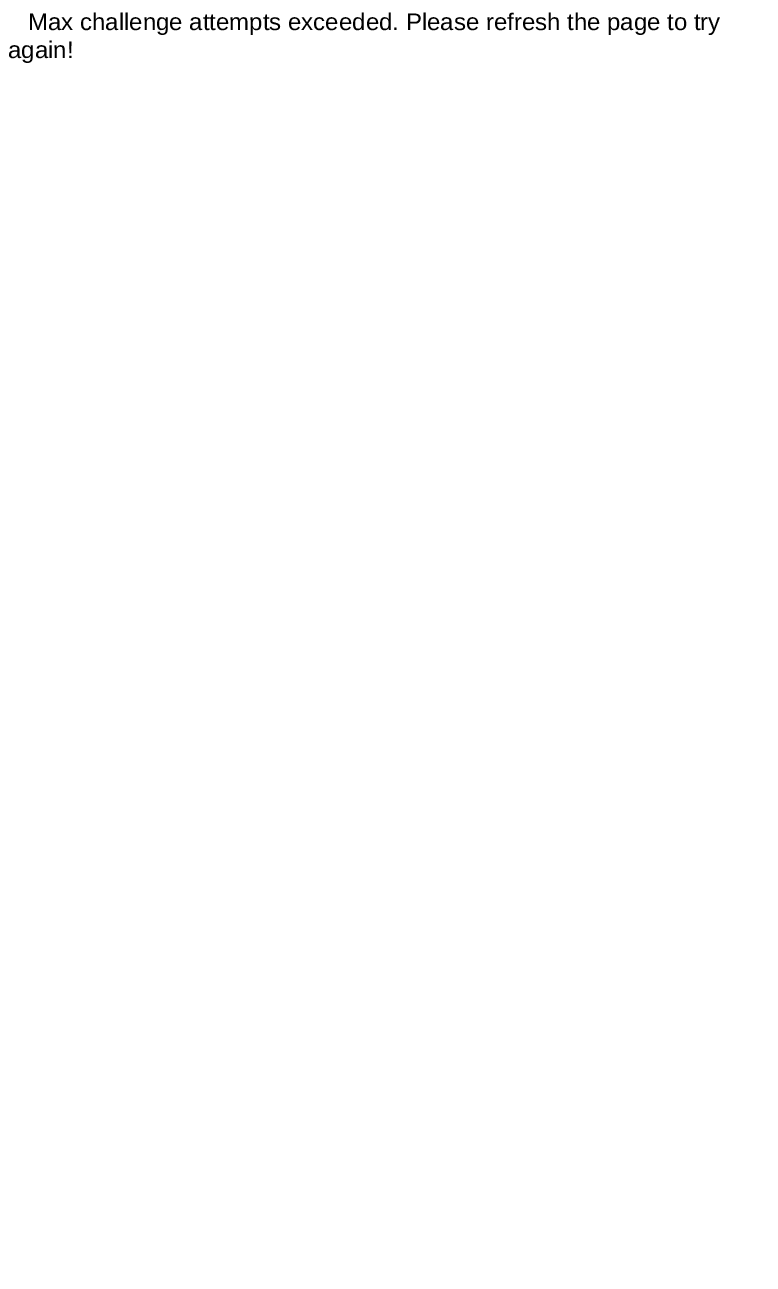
%!PS-Adobe-3.0
%%BoundingBox: 0 0 778 1289
%%LanguageLevel: 3
%%Pages: 1
%%EndComments
%%BeginProlog
/setink { 3 { 255 div 3 1 roll } repeat setrgbcolor } def
/usefont { [ exch dup neg 0 0 3 -1 roll 0 0 ] selectfont } def
/drawtext { setink usefont moveto show } def
/fillbox { setink rectfill } def
%%EndProlog
%%BeginSetup
<< /PageSize [778 1289] >> setpagedevice
%%EndSetup
%%Page: 1 1
0 1289 translate 1 -1 scale
4 setmiterlimit
0 0 778 1289 255 255 255 fillbox
(Max challenge attempts exceeded. Please refresh the page to try) 28 30 /LiberationSans-Regular 24 0 0 0 drawtext
(again!) 8 58 /LiberationSans-Regular 24 0 0 0 drawtext
showpage
%%EOF
